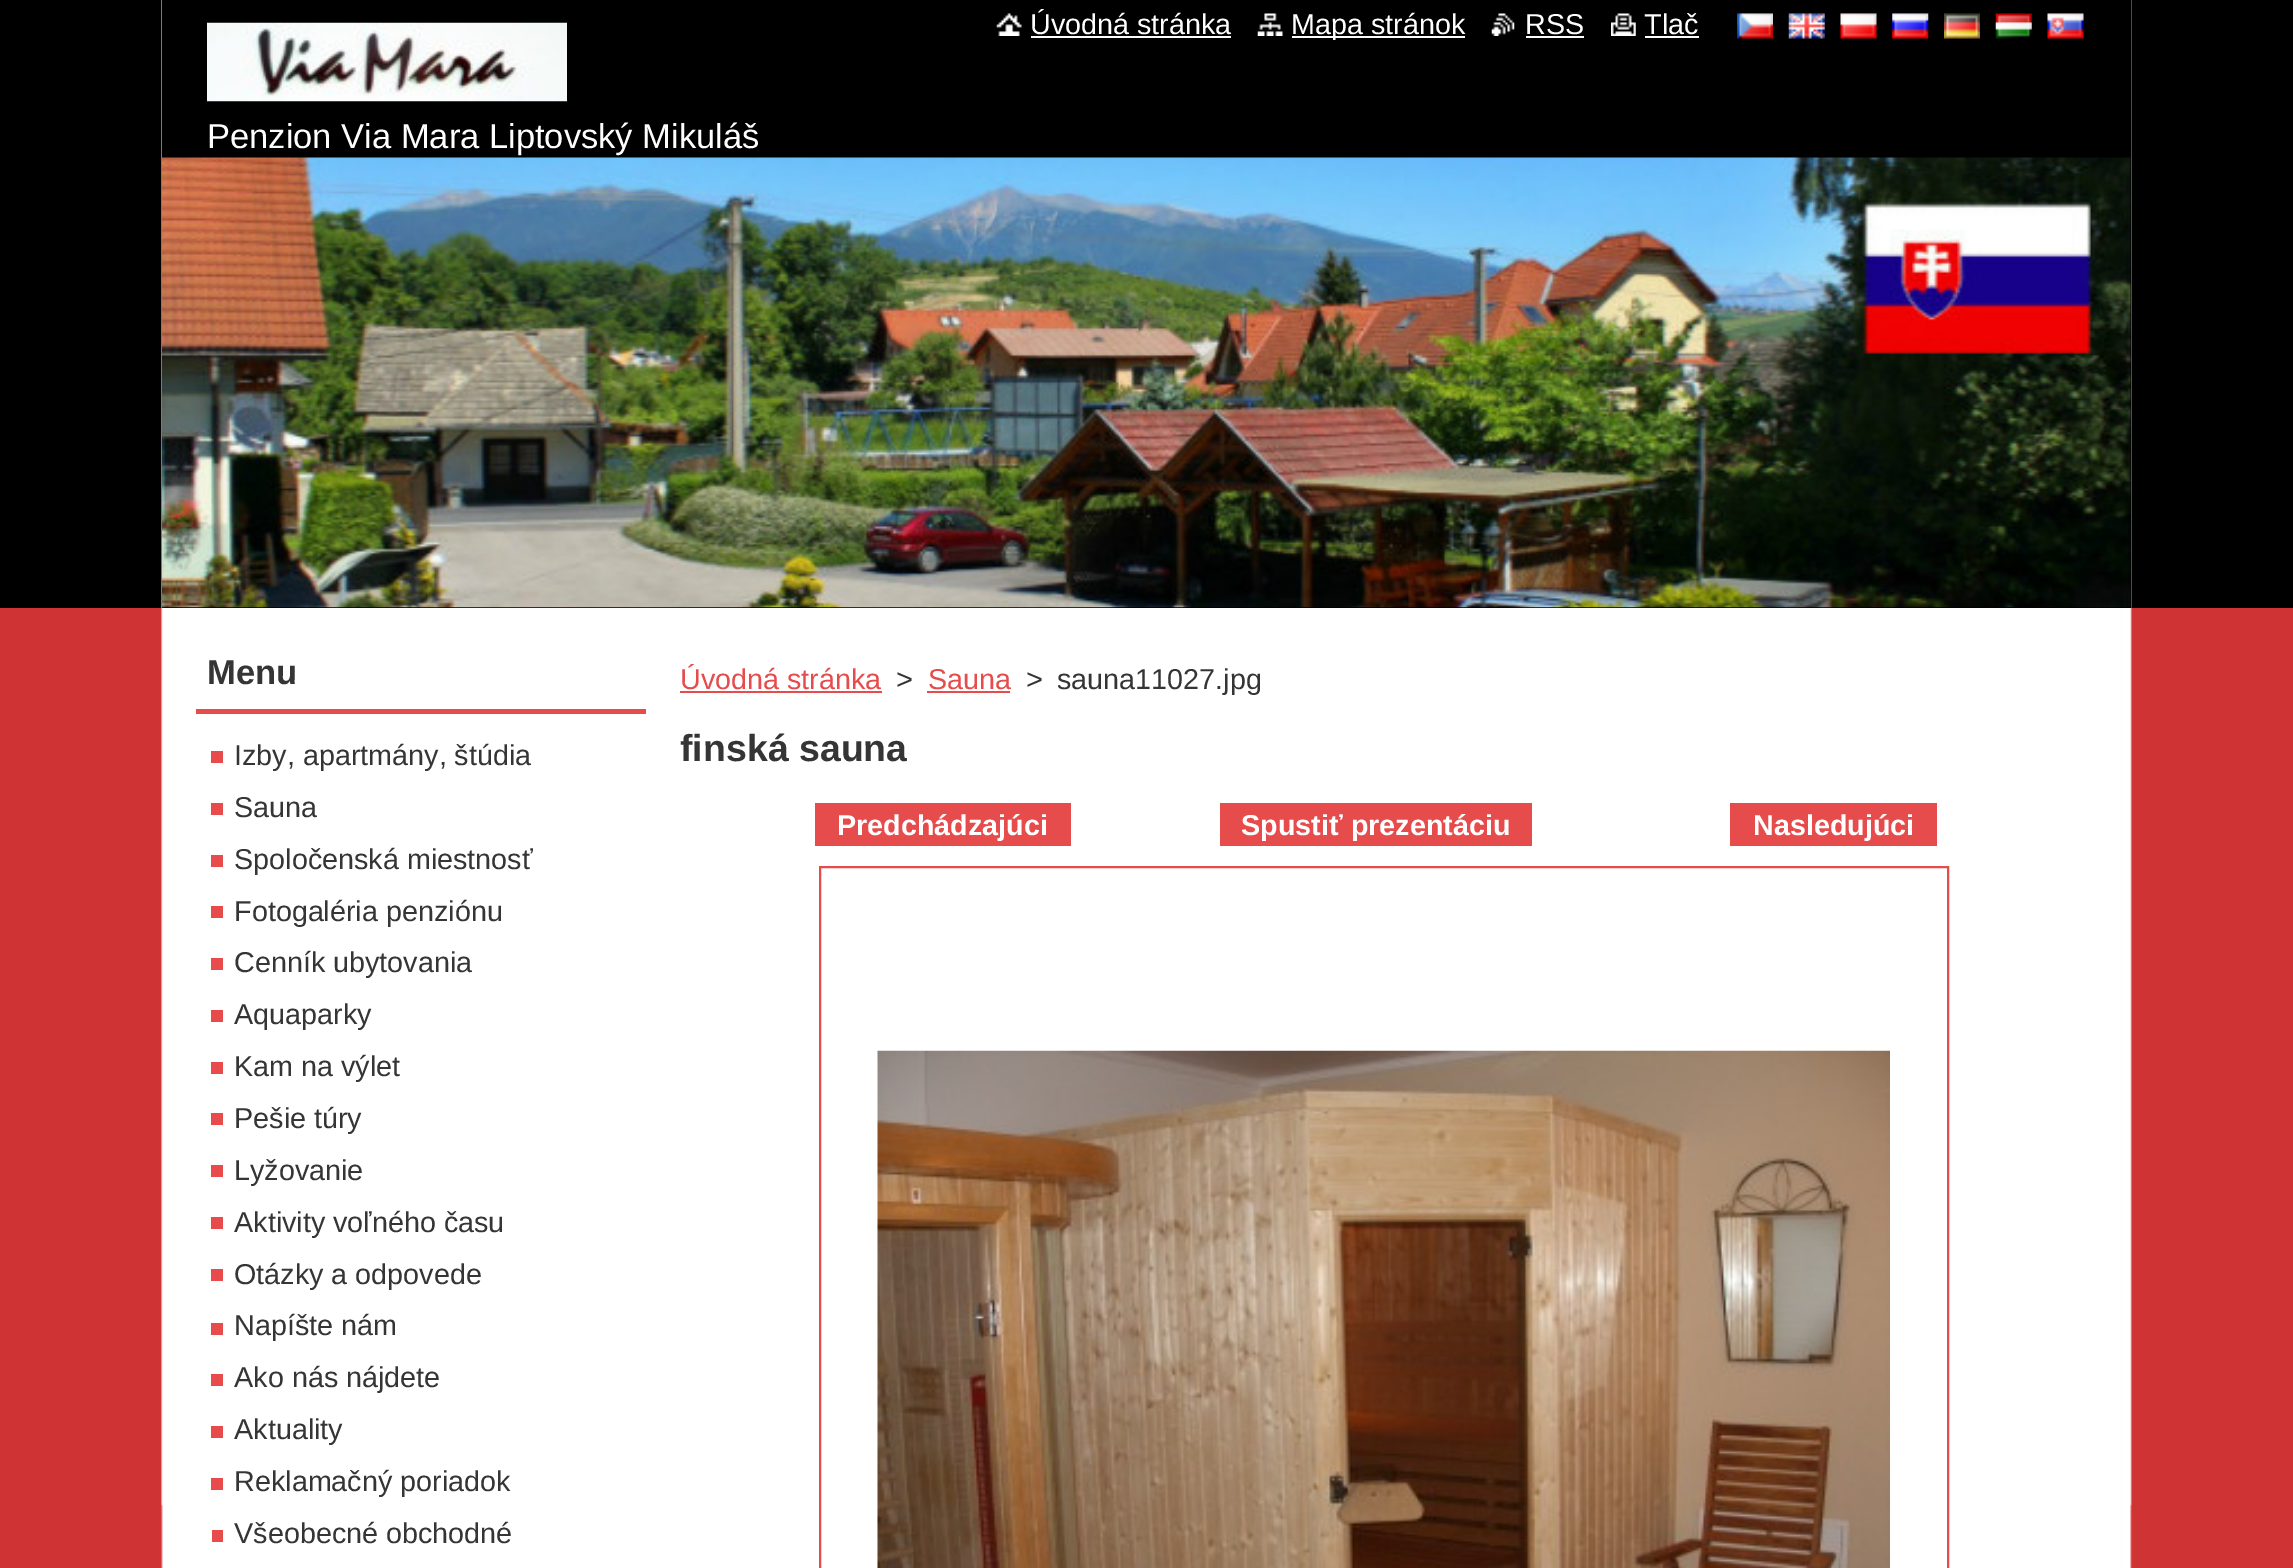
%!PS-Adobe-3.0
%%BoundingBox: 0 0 2293 1568
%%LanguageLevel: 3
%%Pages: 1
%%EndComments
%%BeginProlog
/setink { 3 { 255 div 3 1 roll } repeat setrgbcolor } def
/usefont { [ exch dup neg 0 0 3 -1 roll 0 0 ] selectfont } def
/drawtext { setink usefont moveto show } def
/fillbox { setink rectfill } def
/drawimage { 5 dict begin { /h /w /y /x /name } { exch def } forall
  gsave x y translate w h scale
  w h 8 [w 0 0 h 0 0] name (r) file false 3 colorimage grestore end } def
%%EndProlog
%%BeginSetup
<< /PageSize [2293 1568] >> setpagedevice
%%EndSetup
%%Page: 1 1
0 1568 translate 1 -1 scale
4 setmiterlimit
0 0 2293 1568 207 51 51 fillbox
0 0 2293 608 0 0 0 fillbox
(assets/img1.rgb) 161 0 1971 1506 drawimage
(assets/img2.rgb) 161 0 1971 1568 drawimage
162 0 1969 608 0 0 0 fillbox
(assets/img3.rgb) 996 13 26 23 drawimage
(Úvodná stránka) 1030 34 /LiberationSans-Regular 28.75 255 255 255 drawtext
1031 36 200 2 255 255 255 fillbox
(assets/img4.rgb) 1257 13 26 23 drawimage
1292 36 173 2 255 255 255 fillbox
(Mapa stránok) 1291 34 /LiberationSans-Regular 28.75 255 255 255 drawtext
(assets/img5.rgb) 1491 13 24 23 drawimage
(RSS) 1525 34 /LiberationSans-Regular 28.75 255 255 255 drawtext
1526 36 58 2 255 255 255 fillbox
(assets/img6.rgb) 1611 13 25 23 drawimage
(Tlač) 1644 34 /LiberationSans-Regular 28.75 255 255 255 drawtext
1645 36 54 2 255 255 255 fillbox
(assets/img7.rgb) 1737 13 36 26 drawimage
(assets/img8.rgb) 1788 13 37 26 drawimage
(assets/img9.rgb) 1840 13 37 26 drawimage
(assets/img10.rgb) 1892 13 37 26 drawimage
(assets/img11.rgb) 1944 13 36 26 drawimage
(assets/img12.rgb) 1995 13 37 26 drawimage
(assets/img13.rgb) 2047 13 37 26 drawimage
(assets/img14.rgb) 207 22 360 80 drawimage
(Penzion Via Mara Liptovský Mikuláš) 207 148 /LiberationSans-Regular 34.5 255 255 255 drawtext
(assets/img15.rgb) 162 157 1969 451 drawimage
196 709 450 5 231 76 76 fillbox
(Menu) 207 684 /LiberationSans-Bold 34.5 53 53 53 drawtext
(Izby, apartmány, štúdia) 234 765 /LiberationSans-Regular 28.75 53 53 53 drawtext
211 751 12 12 231 75 76 fillbox
(Sauna) 234 817 /LiberationSans-Regular 28.75 53 53 53 drawtext
211 803 12 12 231 75 76 fillbox
(Spoločenská miestnosť) 234 869 /LiberationSans-Regular 28.75 53 53 53 drawtext
211 855 12 12 231 75 76 fillbox
(Fotogaléria penziónu) 234 921 /LiberationSans-Regular 28.75 53 53 53 drawtext
211 906 12 12 231 75 76 fillbox
(Cenník ubytovania) 234 972 /LiberationSans-Regular 28.75 53 53 53 drawtext
211 958 12 12 231 75 76 fillbox
(Aquaparky) 234 1024 /LiberationSans-Regular 28.75 53 53 53 drawtext
211 1010 12 12 231 75 76 fillbox
(Kam na výlet) 234 1076 /LiberationSans-Regular 28.75 53 53 53 drawtext
211 1062 12 12 231 75 76 fillbox
(Pešie túry) 234 1128 /LiberationSans-Regular 28.75 53 53 53 drawtext
211 1113 12 12 231 75 76 fillbox
(Lyžovanie) 234 1180 /LiberationSans-Regular 28.75 53 53 53 drawtext
211 1165 12 12 231 75 76 fillbox
(Aktivity voľného času) 234 1232 /LiberationSans-Regular 28.75 53 53 53 drawtext
211 1217 12 12 231 75 76 fillbox
(Otázky a odpovede) 234 1284 /LiberationSans-Regular 28.75 53 53 53 drawtext
211 1269 12 12 231 75 76 fillbox
(Napíšte nám) 234 1335 /LiberationSans-Regular 28.75 53 53 53 drawtext
211 1323 12 12 231 75 76 fillbox
(Ako nás nájdete) 234 1387 /LiberationSans-Regular 28.75 53 53 53 drawtext
211 1374 12 12 231 75 76 fillbox
(Aktuality) 234 1439 /LiberationSans-Regular 28.75 53 53 53 drawtext
211 1426 12 12 231 75 76 fillbox
(Reklamačný poriadok) 234 1491 /LiberationSans-Regular 28.75 53 53 53 drawtext
211 1478 12 12 231 75 76 fillbox
(Všeobecné obchodné) 234 1543 /LiberationSans-Regular 28.75 53 53 53 drawtext
212 1530 11 12 231 75 76 fillbox
(Úvodná stránka) 680 689 /LiberationSans-Regular 28.75 231 76 76 drawtext
680 691 202 2 231 76 76 fillbox
(>) 896 689 /LiberationSans-Regular 28.75 53 53 53 drawtext
(Sauna) 928 689 /LiberationSans-Regular 28.75 231 76 76 drawtext
927 691 83 2 231 76 76 fillbox
(>) 1026 689 /LiberationSans-Regular 28.75 53 53 53 drawtext
(sauna11027.jpg) 1057 689 /LiberationSans-Regular 28.75 53 53 53 drawtext
(finská sauna) 680 761 /LiberationSans-Bold 37.5 53 53 53 drawtext
815 803 256 43 231 76 76 fillbox
(Predchádzajúci) 837 835 /LiberationSans-Bold 28.75 255 255 255 drawtext
1220 803 312 43 231 76 76 fillbox
(Spustiť prezentáciu) 1241 835 /LiberationSans-Bold 28.75 255 255 255 drawtext
1730 803 207 43 231 76 76 fillbox
(Nasledujúci) 1753 835 /LiberationSans-Bold 28.75 255 255 255 drawtext
231 76 76 setink
2 setlinewidth
820 867 1128 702 rectstroke
(assets/img16.rgb) 877 1050 1013 518 drawimage
showpage
%%EOF
